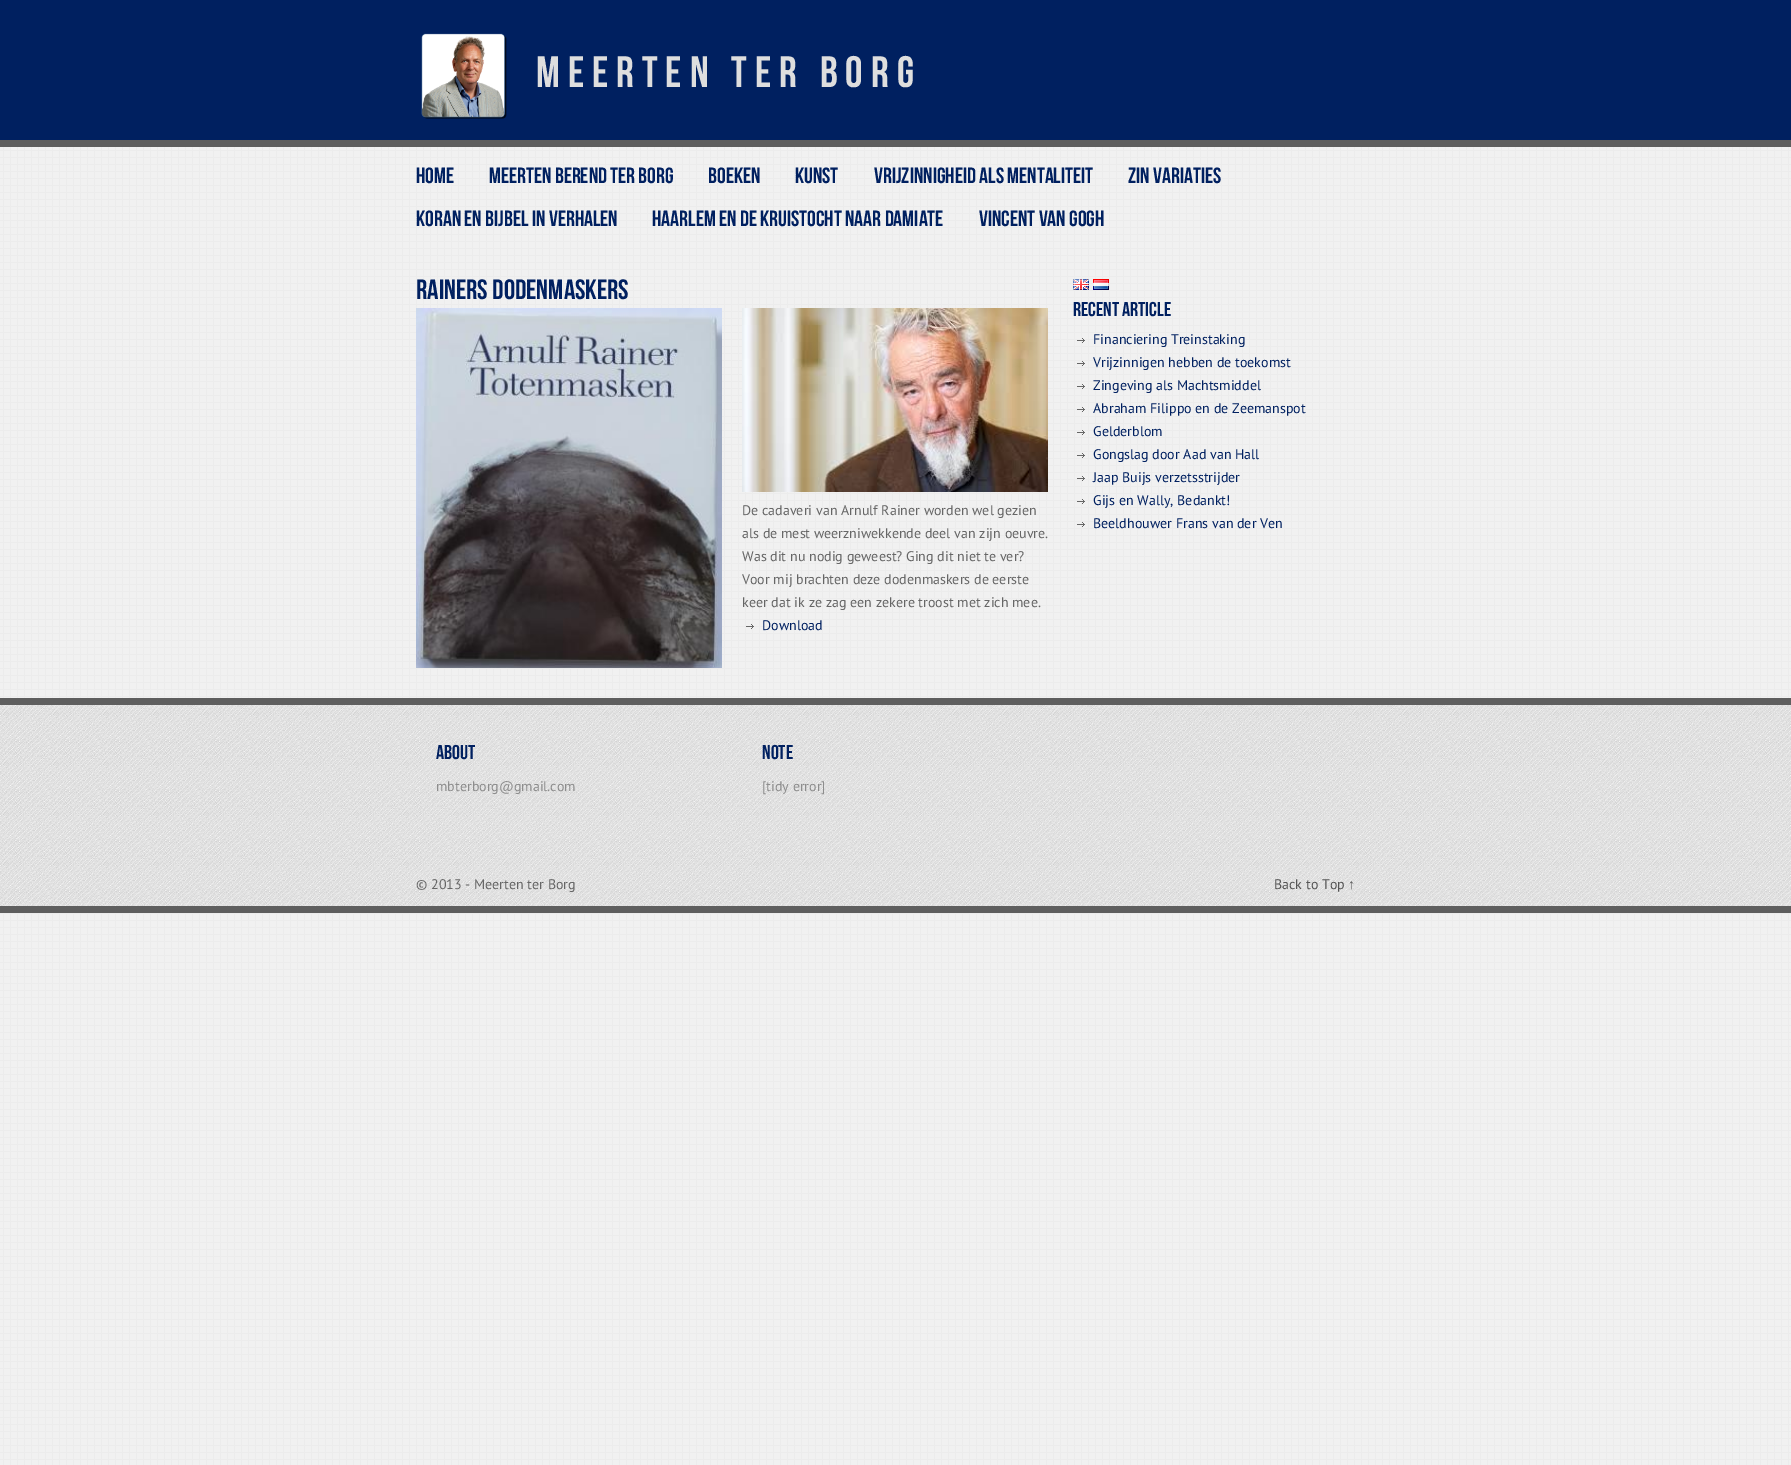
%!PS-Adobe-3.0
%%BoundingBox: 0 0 1791 1465
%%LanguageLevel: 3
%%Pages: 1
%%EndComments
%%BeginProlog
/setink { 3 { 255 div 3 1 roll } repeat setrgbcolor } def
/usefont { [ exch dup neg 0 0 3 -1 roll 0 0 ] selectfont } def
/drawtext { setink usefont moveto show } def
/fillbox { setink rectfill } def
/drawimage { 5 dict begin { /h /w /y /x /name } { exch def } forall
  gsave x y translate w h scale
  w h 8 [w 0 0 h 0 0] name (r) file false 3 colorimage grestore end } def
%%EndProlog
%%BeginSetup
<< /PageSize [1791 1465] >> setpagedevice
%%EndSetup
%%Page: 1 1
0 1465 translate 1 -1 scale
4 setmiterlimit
0 0 1791 1465 255 255 255 fillbox
(assets/img1.rgb) 0 147 1791 1318 drawimage
0 0 1791 140 0 32 96 fillbox
0 140 1791 7 94 94 94 fillbox
(assets/img2.rgb) 421 33 86 86 drawimage
/BebasNeue-Regular 44 usefont
222 222 222 setink
536 87 moveto 8 0 (MEERTEN TER BORG) ashow
(HOME) 416 183 /BebasNeue-Regular 22 0 32 96 drawtext
(MEERTEN BEREND TER BORG) 489 183 /BebasNeue-Regular 22 0 32 96 drawtext
(BOEKEN) 708 183 /BebasNeue-Regular 22 0 32 96 drawtext
(KUNST) 795 183 /BebasNeue-Regular 22 0 32 96 drawtext
(VRIJZINNIGHEID ALS MENTALITEIT) 874 183 /BebasNeue-Regular 22 0 32 96 drawtext
(ZIN VARIATIES) 1128 183 /BebasNeue-Regular 22 0 32 96 drawtext
(KORAN EN BIJBEL IN VERHALEN) 416 226 /BebasNeue-Regular 22 0 32 96 drawtext
(HAARLEM EN DE KRUISTOCHT NAAR DAMIATE) 652 226 /BebasNeue-Regular 22 0 32 96 drawtext
(VINCENT VAN GOGH) 979 226 /BebasNeue-Regular 22 0 32 96 drawtext
(Rainers dodenmaskers) 416 299 /BebasNeue-Regular 28 0 32 96 drawtext
(assets/img3.rgb) 416 308 306 360 drawimage
(assets/img4.rgb) 742 308 306 184 drawimage
(De cadaveri van Arnulf Rainer worden wel gezien) 742 515 /PTSans-Regular 14 102 102 102 drawtext
(als de mest weerzniwekkende deel van zijn oeuvre.) 742 538 /PTSans-Regular 14 102 102 102 drawtext
(Was dit nu nodig geweest? Ging dit niet te ver?) 742 561 /PTSans-Regular 14 102 102 102 drawtext
(Voor mij brachten deze dodenmaskers de eerste) 742 584 /PTSans-Regular 14 102 102 102 drawtext
(keer dat ik ze zag een zekere troost met zich mee.) 742 607 /PTSans-Regular 14 102 102 102 drawtext
(assets/img5.rgb) 746 624 8 5 drawimage
(Download) 762 630 /PTSans-Regular 14 0 32 96 drawtext
(assets/img6.rgb) 1073 279 16 11 drawimage
(assets/img7.rgb) 1093 279 16 11 drawimage
(Recent Article) 1073 316 /BebasNeue-Regular 20 0 32 96 drawtext
(assets/img8.rgb) 1077 338 8 5 drawimage
(Financiering Treinstaking) 1093 344 /PTSans-Regular 14 0 32 96 drawtext
(assets/img9.rgb) 1077 361 8 5 drawimage
(Vrijzinnigen hebben de toekomst) 1093 367 /PTSans-Regular 14 0 32 96 drawtext
(assets/img10.rgb) 1077 384 8 5 drawimage
(Zingeving als Machtsmiddel) 1093 390 /PTSans-Regular 14 0 32 96 drawtext
(assets/img9.rgb) 1077 407 8 5 drawimage
(Abraham Filippo en de Zeemanspot) 1093 413 /PTSans-Regular 14 0 32 96 drawtext
(assets/img11.rgb) 1077 430 8 5 drawimage
(Gelderblom) 1093 436 /PTSans-Regular 14 0 32 96 drawtext
(assets/img9.rgb) 1077 453 8 5 drawimage
(Gongslag door Aad van Hall) 1093 459 /PTSans-Regular 14 0 32 96 drawtext
(assets/img12.rgb) 1077 476 8 5 drawimage
(Jaap Buijs verzetsstrijder) 1093 482 /PTSans-Regular 14 0 32 96 drawtext
(assets/img8.rgb) 1077 499 8 5 drawimage
(Gijs en Wally, Bedankt!) 1093 505 /PTSans-Regular 14 0 32 96 drawtext
(assets/img9.rgb) 1077 522 8 5 drawimage
(Beeldhouwer Frans van der Ven) 1093 528 /PTSans-Regular 14 0 32 96 drawtext
(assets/img13.rgb) 0 705 1791 201 drawimage
0 698 1791 7 94 94 94 fillbox
0 906 1791 7 94 94 94 fillbox
(About) 436 759 /BebasNeue-Regular 20 0 32 96 drawtext
(mbterborg@gmail.com) 436 791 /PTSans-Regular 14 141 141 141 drawtext
(Note) 762 759 /BebasNeue-Regular 20 0 32 96 drawtext
([tidy error]) 762 791 /PTSans-Regular 14 141 141 141 drawtext
(© 2013 - Meerten ter Borg) 416 889 /PTSans-Regular 14 102 102 102 drawtext
(Back to Top) 1274 889 /PTSans-Regular 14 85 85 85 drawtext
(↑) 1348 889 /LiberationSans-Regular 14 85 85 85 drawtext
showpage
%%EOF
